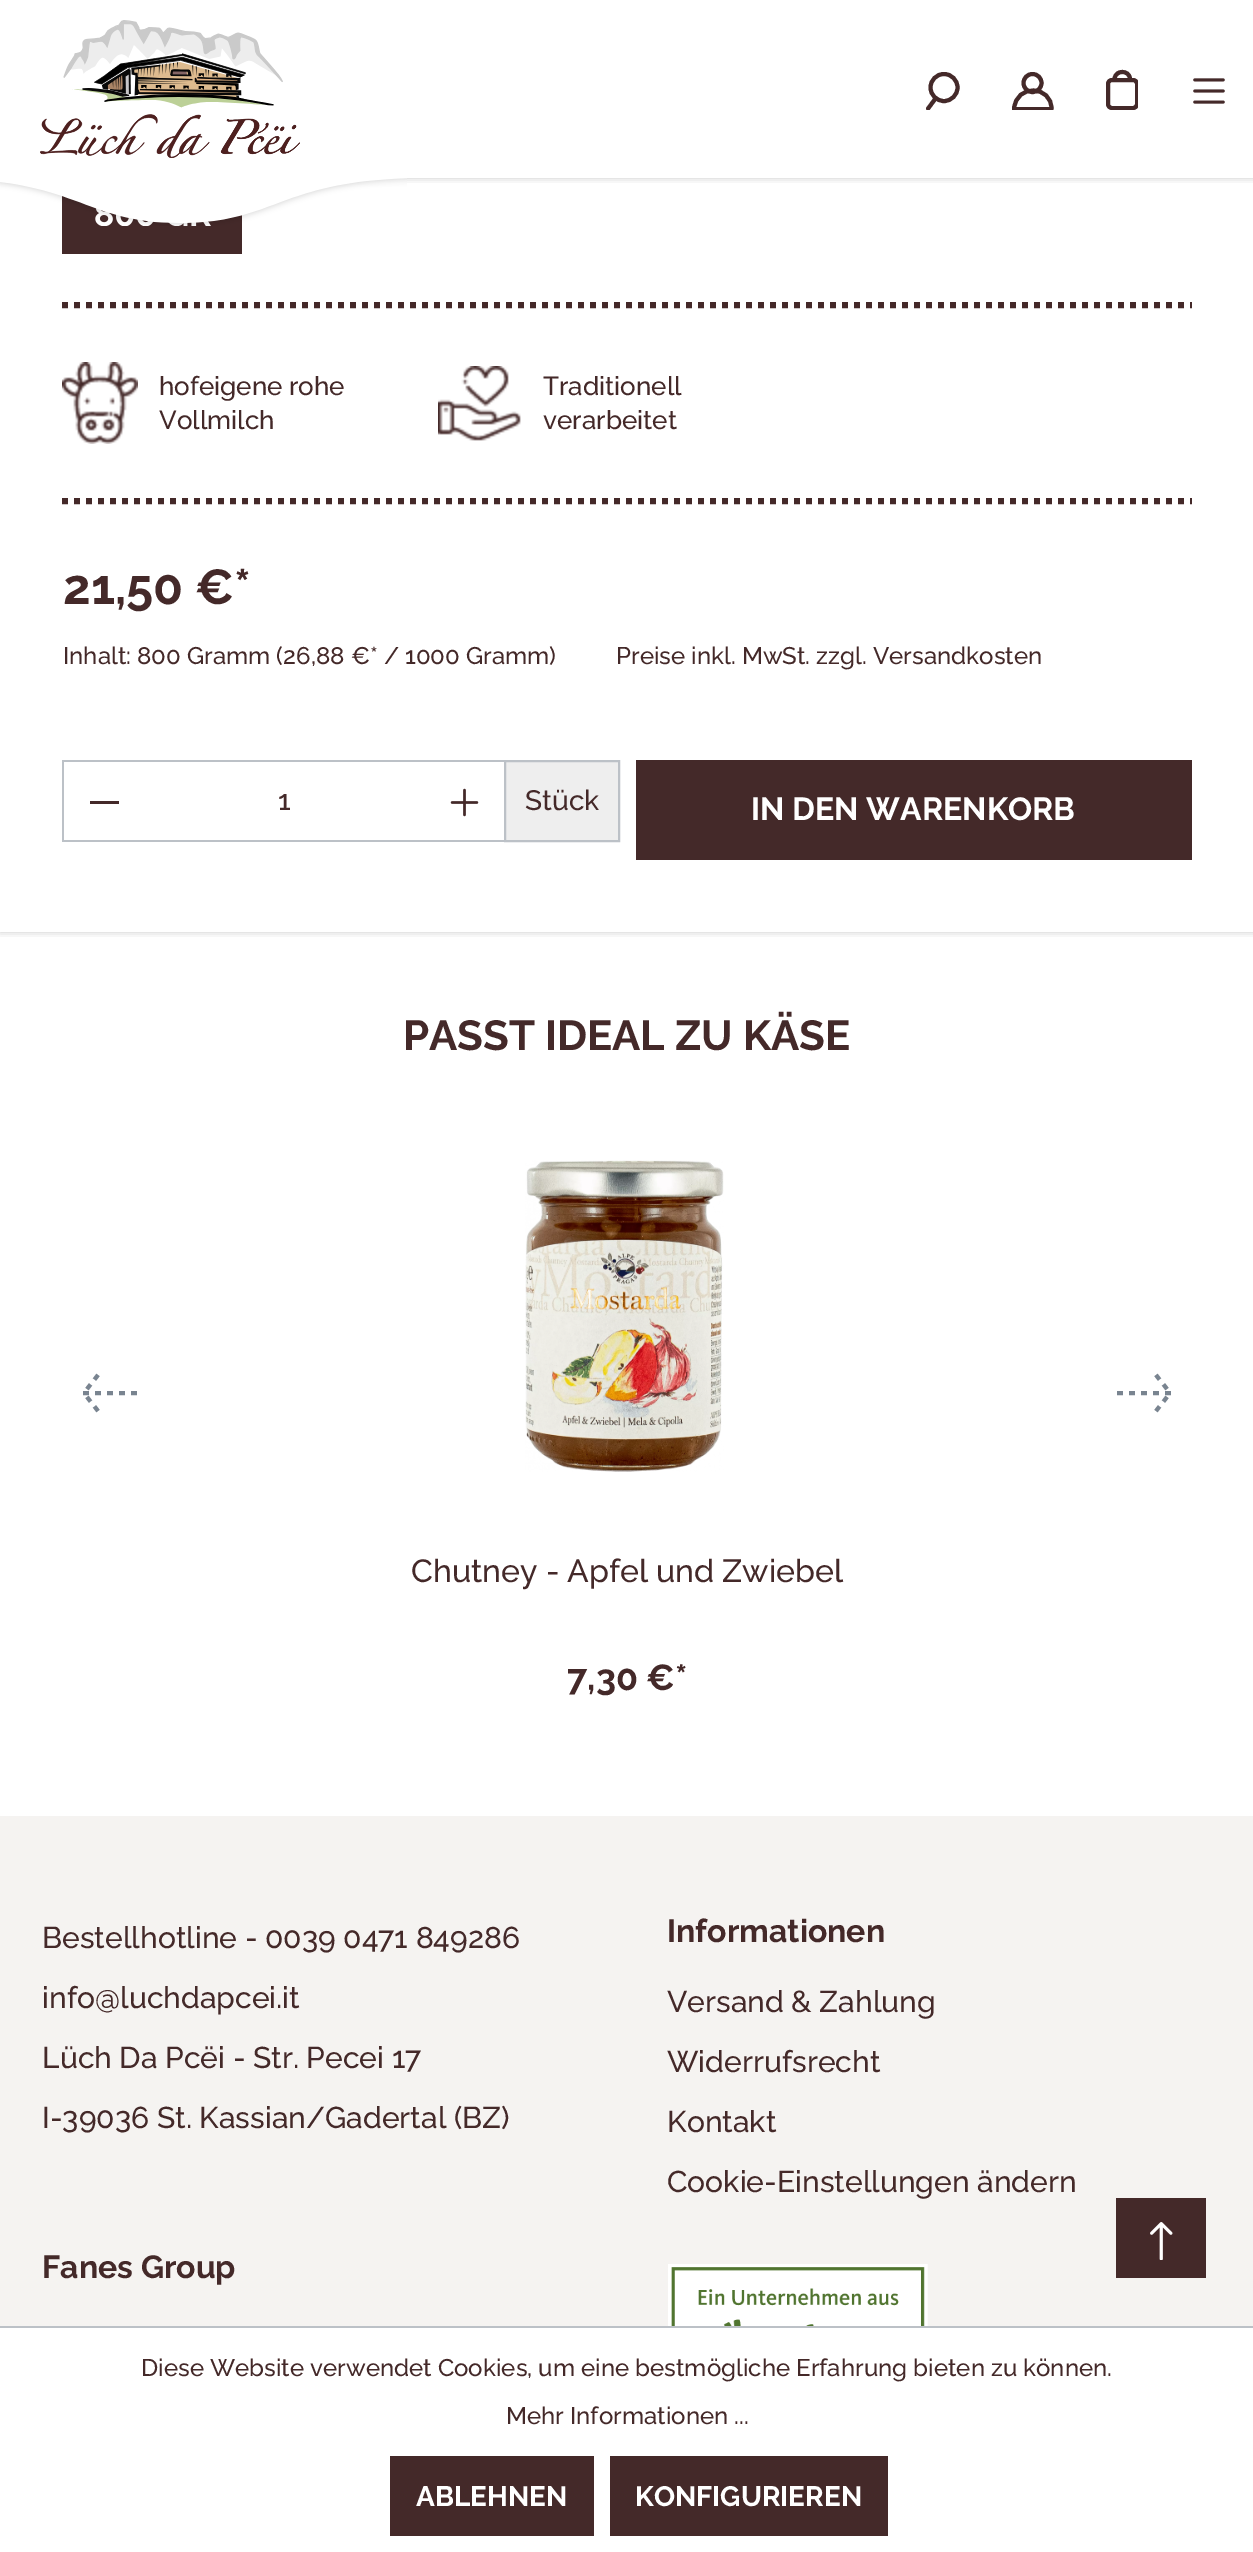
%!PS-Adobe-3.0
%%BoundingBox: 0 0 1253 2552
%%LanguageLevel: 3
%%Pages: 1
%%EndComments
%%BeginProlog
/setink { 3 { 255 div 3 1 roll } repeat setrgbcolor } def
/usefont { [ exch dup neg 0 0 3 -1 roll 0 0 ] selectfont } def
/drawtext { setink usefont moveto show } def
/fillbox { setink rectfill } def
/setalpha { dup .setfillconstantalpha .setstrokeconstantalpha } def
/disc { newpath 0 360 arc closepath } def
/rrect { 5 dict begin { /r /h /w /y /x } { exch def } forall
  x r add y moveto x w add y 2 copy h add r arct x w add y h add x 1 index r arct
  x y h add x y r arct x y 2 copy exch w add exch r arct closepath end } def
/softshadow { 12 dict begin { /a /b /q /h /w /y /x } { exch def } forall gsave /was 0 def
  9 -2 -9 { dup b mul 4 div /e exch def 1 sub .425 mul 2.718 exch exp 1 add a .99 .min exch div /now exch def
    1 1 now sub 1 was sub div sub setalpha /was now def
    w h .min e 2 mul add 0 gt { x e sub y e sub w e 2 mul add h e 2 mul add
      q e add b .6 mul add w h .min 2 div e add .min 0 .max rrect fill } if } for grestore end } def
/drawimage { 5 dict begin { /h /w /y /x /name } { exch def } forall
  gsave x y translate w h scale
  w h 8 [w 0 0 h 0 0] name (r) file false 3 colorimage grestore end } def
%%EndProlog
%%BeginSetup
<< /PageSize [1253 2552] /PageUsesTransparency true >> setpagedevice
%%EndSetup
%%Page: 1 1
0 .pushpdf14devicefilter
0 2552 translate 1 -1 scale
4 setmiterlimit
0 0 1253 2552 255 255 255 fillbox
gsave
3 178 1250 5 rectclip
0 0 0 setink
0 0 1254 178 0 4 0.2 softshadow
grestore
gsave
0 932 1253 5 rectclip
0 0 0 setink
0 -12 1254 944 0 4 0.2 softshadow
grestore
(assets/img1.rgb) 40 20 260 138 drawimage
62 196 180 58 68 41 41 fillbox
(assets/img2.rgb) 0 178 407 48 drawimage
gsave
926 72 moveto 959.5 72 lineto 959.5 110.5 lineto 926 110.5 lineto closepath clip newpath
4 setlinewidth
944 87.5 13.5 disc stroke
grestore
gsave
926 72 34 38 rectclip
4 setlinewidth
935.5 98.5 moveto 927 110 lineto stroke
grestore
gsave
1012 72 42 38 rectclip
4 setlinewidth
1014 109 moveto 1016 83 1052 85.5 1051.5 109 curveto closepath stroke
grestore
4 setlinewidth
1032.5 83 9 disc stroke
gsave
1106 70 32 40 rectclip
1108 80 29 28 4 rrect stroke
grestore
1114.5 78.5 moveto 1116 69.5 1129 70 1130 78.5 curveto stroke
(assets/img3.rgb) 1193 78 32 26 drawimage
6 setlinewidth
[6 6] 0 setdash
62 305 moveto 1192 305 lineto stroke
(assets/img4.rgb) 62 362 76 82 drawimage
(hofeigene rohe) 159 395 /Raleway-Medium 26 68 41 41 drawtext
(Vollmilch) 159 429 /Raleway-Medium 26 68 41 41 drawtext
(assets/img5.rgb) 438 366 83 75 drawimage
(Traditionell) 543 395 /Raleway-Medium 26 68 41 41 drawtext
(verarbeitet) 543 429 /Raleway-Medium 26 68 41 41 drawtext
62 501 moveto 1192 501 lineto stroke
(21,50 €*) 63 604 /Raleway-Bold 49 68 41 41 drawtext
(Inhalt: 800 Gramm \(26,88 €* / 1000 Gramm\)) 63 664 /Raleway-Medium 24 68 41 41 drawtext
(Preise inkl. MwSt. zzgl. Versandkosten) 616 664 /Raleway-Medium 24 68 41 41 drawtext
238 238 238 setink
505 761 moveto 619 761 lineto 619 841 lineto 505 841 lineto closepath gsave fill grestore
188 193 199 setink
2 setlinewidth
[] 0 setdash
stroke
62 760 444 2 188 193 199 fillbox
62 840 444 2 188 193 199 fillbox
62 760 2 82 188 193 199 fillbox
90 801 29 3 68 41 41 fillbox
(1) 278 810 /Raleway-Medium 28 68 41 41 drawtext
(assets/img6.rgb) 450 788 29 29 drawimage
(Stück) 525 810 /Raleway-Medium 28 68 41 41 drawtext
636 760 556 100 68 41 41 fillbox
(IN DEN WARENKORB) 751 820 /Raleway-Bold 32 255 255 255 drawtext
(PASST IDEAL ZU KÄSE) 403 1050 /Raleway-Bold 42 68 41 41 drawtext
121 132 144 setink
4 setlinewidth
[6 6] 0 setdash
137 1393 moveto 82 1393 lineto stroke
[] 0 setdash
98 1375 moveto 94.5 1379.5 lineto 90.5 1384.5 moveto 87 1389 lineto 98 1411 moveto 94.5 1406.5 lineto 90.5 1401.5 moveto 87 1397 lineto stroke
[6 6] 0 setdash
1117 1393 moveto 1172 1393 lineto stroke
[] 0 setdash
1156 1411 moveto 1159.5 1406.5 lineto 1163.5 1401.5 moveto 1167 1397 lineto 1156 1375 moveto 1159.5 1379.5 lineto 1163.5 1384.5 moveto 1167 1389 lineto stroke
(assets/img7.rgb) 525 1160 199 312 drawimage
(Chutney - Apfel und Zwiebel) 411 1582 /Raleway-Medium 32 68 41 41 drawtext
(7,30 €*) 567 1690 /Raleway-Bold 36 68 41 41 drawtext
0 1816 1253 510 245 243 241 fillbox
(Bestellhotline - 0039 0471 849286) 42 1948 /Raleway-Medium 30 68 41 41 drawtext
(info@luchdapcei.it) 42 2008 /Raleway-Medium 30 68 41 41 drawtext
(Lüch Da Pcëi - Str. Pecei 17) 42 2068 /Raleway-Medium 30 68 41 41 drawtext
(I-39036 St. Kassian/Gadertal \(BZ\)) 42 2128 /Raleway-Medium 30 68 41 41 drawtext
(Informationen) 667 1942 /Raleway-Bold 32 68 41 41 drawtext
(Versand & Zahlung) 667 2012 /Raleway-Medium 30 68 41 41 drawtext
(Widerrufsrecht) 667 2072 /Raleway-Medium 30 68 41 41 drawtext
(Kontakt) 667 2132 /Raleway-Medium 30 68 41 41 drawtext
(Cookie-Einstellungen ändern) 667 2192 /Raleway-Medium 30 68 41 41 drawtext
(Fanes Group) 42 2278 /Raleway-Bold 32 68 41 41 drawtext
(assets/img8.rgb) 668 2264 260 62 drawimage
1116 2198 90 80 68 41 41 fillbox
(assets/img9.rgb) 1150 2222 23 38 drawimage
0 2326 1253 2 188 193 199 fillbox
(Diese Website verwendet Cookies, um eine bestmögliche Erfahrung bieten zu können.) 141 2376 /Raleway-Medium 24 68 41 41 drawtext
(Mehr Informationen ...) 506 2424 /Raleway-Medium 24 68 41 41 drawtext
390 2456 204 80 68 41 41 fillbox
(ABLEHNEN) 416 2506 /Raleway-Bold 28 255 255 255 drawtext
610 2456 278 80 68 41 41 fillbox
(KONFIGURIEREN) 635 2506 /Raleway-Bold 28 255 255 255 drawtext
.poppdf14devicefilter showpage
%%EOF
